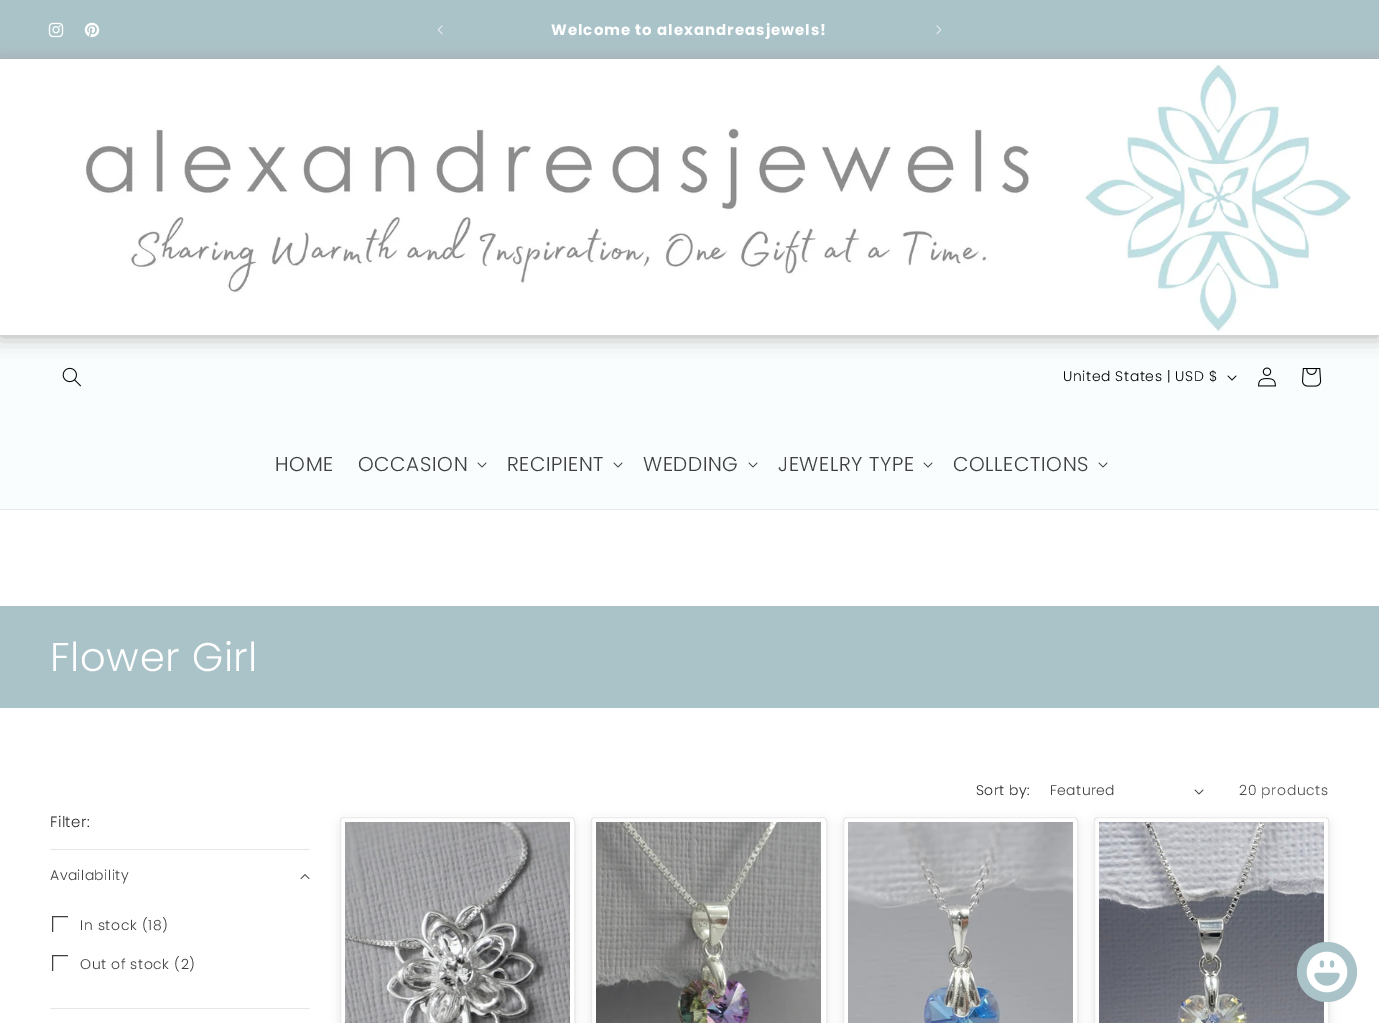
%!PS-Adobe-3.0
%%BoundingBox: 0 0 1379 1023
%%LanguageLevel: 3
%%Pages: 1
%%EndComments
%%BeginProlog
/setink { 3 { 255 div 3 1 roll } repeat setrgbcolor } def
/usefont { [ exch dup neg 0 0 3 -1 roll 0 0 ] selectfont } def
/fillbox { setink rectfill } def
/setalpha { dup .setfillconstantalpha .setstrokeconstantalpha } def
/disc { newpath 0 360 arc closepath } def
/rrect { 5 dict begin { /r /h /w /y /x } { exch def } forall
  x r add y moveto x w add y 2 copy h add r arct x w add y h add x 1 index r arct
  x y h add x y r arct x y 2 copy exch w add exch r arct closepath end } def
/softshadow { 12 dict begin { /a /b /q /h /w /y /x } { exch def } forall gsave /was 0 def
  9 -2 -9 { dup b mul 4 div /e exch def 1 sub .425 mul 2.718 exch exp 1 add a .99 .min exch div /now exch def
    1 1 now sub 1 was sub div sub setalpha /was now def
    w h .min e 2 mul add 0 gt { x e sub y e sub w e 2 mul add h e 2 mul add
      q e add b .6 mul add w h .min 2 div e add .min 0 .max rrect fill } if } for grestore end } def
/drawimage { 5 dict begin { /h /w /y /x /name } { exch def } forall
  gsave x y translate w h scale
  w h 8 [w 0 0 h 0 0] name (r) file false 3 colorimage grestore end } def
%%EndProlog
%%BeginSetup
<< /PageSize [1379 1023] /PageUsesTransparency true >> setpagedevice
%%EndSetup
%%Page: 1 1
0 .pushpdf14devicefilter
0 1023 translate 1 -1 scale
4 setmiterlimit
0 0 1379 1023 255 255 255 fillbox
0 0 1379 59 170 195 200 fillbox
(assets/img1.rgb) 48 22 16 16 drawimage
(assets/img2.rgb) 84 22 16 16 drawimage
(assets/img3.rgb) 438 25 5 10 drawimage
/Poppins-Bold 15 usefont
255 255 255 setink
551 35 moveto 1 0 (Welcome to alexandreasjewels!) ashow
(assets/img4.rgb) 936 25 5 10 drawimage
0 335 1379 174 249 253 253 fillbox
gsave
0 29 moveto 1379 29 lineto 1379 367 lineto 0 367 lineto closepath 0 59 moveto 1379 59 lineto 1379 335 lineto 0 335 lineto closepath eoclip newpath
169 169 169 setink
0 60 1379 276 0 10 1 softshadow
grestore
(assets/img5.rgb) 85 64 1266 268 drawimage
0 509 1379 1 229 233 233 fillbox
(assets/img6.rgb) 62 367 19 20 drawimage
/Poppins-Light 14 usefont
0 0 0 setink
1063 381 moveto 0.6 0 (United States | USD $) ashow
(assets/img7.rgb) 1227 375 10 6 drawimage
(assets/img8.rgb) 1258 367 18 20 drawimage
(assets/img9.rgb) 1302 368 20 19 drawimage
/Poppins-Light 20 usefont
64 64 64 setink
275 471 moveto 0.6 0 (HOME) ashow
358 471 moveto 0.6 0 (OCCASION) ashow
(assets/img10.rgb) 477 462 10 6 drawimage
507 471 moveto 0.6 0 (RECIPIENT) ashow
(assets/img10.rgb) 613 462 10 6 drawimage
643 471 moveto 0.6 0 (WEDDING) ashow
(assets/img10.rgb) 748 462 10 6 drawimage
778 471 moveto 0.6 0 (JEWELRY TYPE) ashow
(assets/img10.rgb) 923 462 10 6 drawimage
953 471 moveto 0.6 0 (COLLECTIONS) ashow
(assets/img10.rgb) 1098 462 10 6 drawimage
0 606 1379 102 170 195 200 fillbox
/Poppins-Light 40 usefont
255 255 255 setink
50 671 moveto 0.6 0 (Flower Girl) ashow
/Poppins-Light 14 usefont
38 38 38 setink
976 795 moveto 0.4 0 (Sort by:) ashow
64 64 64 setink
1050 795 moveto 0.4 0 (Featured) ashow
(assets/img11.rgb) 1194 789 10 6 drawimage
77 77 77 setink
1239 795 moveto 0.6 0 (20 products) ashow
/Poppins-Light 15 usefont
38 38 38 setink
50 827 moveto 0.4 0 (Filter:) ashow
50 849 260 1 230 230 230 fillbox
/Poppins-Light 14 usefont
64 64 64 setink
50 880 moveto 0.4 0 (Availability) ashow
(assets/img12.rgb) 300 874 10 5 drawimage
gsave
52 916 16 16 rectclip
52.5 916.5 16 16 rectstroke
grestore
80 930 moveto 0.6 0 (In stock \(18\)) ashow
gsave
52 955 16 16 rectclip
52.5 955.5 16 16 rectstroke
grestore
80 969 moveto 0.6 0 (Out of stock \(2\)) ashow
50 1008 260 1 230 230 230 fillbox
236 236 236 setink
340.5 817.5 234 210 3.5 rrect stroke
gsave
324 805 moveto 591 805 lineto 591 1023 lineto 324 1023 lineto closepath 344 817 moveto 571 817 lineto 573 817 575 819 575 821 curveto 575 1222 lineto 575 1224 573 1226 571 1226 curveto 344 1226 lineto 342 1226 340 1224 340 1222 curveto 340 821 lineto 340 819 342 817 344 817 curveto closepath eoclip newpath
74 75 75 setink
340 821 235 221 4 5 0.15 softshadow
grestore
(assets/img13.rgb) 345 822 225 201 drawimage
591.5 817.5 235 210 3.5 rrect stroke
gsave
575 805 moveto 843 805 lineto 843 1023 lineto 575 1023 lineto closepath 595 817 moveto 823 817 lineto 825 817 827 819 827 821 curveto 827 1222 lineto 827 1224 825 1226 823 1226 curveto 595 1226 lineto 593 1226 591 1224 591 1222 curveto 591 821 lineto 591 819 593 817 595 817 curveto closepath eoclip newpath
74 75 75 setink
591 821 236 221 4 5 0.15 softshadow
grestore
(assets/img14.rgb) 596 822 225 201 drawimage
843.5 817.5 234 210 3.5 rrect stroke
gsave
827 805 moveto 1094 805 lineto 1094 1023 lineto 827 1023 lineto closepath 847 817 moveto 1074 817 lineto 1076 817 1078 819 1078 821 curveto 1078 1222 lineto 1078 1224 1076 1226 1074 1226 curveto 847 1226 lineto 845 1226 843 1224 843 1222 curveto 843 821 lineto 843 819 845 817 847 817 curveto closepath eoclip newpath
74 75 75 setink
843 821 235 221 4 5 0.15 softshadow
grestore
(assets/img15.rgb) 848 822 225 201 drawimage
1094.5 817.5 234 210 3.5 rrect stroke
gsave
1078 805 moveto 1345 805 lineto 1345 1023 lineto 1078 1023 lineto closepath 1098 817 moveto 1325 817 lineto 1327 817 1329 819 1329 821 curveto 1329 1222 lineto 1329 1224 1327 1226 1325 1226 curveto 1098 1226 lineto 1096 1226 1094 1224 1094 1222 curveto 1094 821 lineto 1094 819 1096 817 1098 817 curveto closepath eoclip newpath
74 75 75 setink
1094 821 235 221 4 5 0.15 softshadow
grestore
(assets/img16.rgb) 1099 822 225 201 drawimage
170 195 200 setink
1327 972 30 disc fill
(assets/img17.rgb) 1306 951 42 42 drawimage
.poppdf14devicefilter showpage
%%EOF
